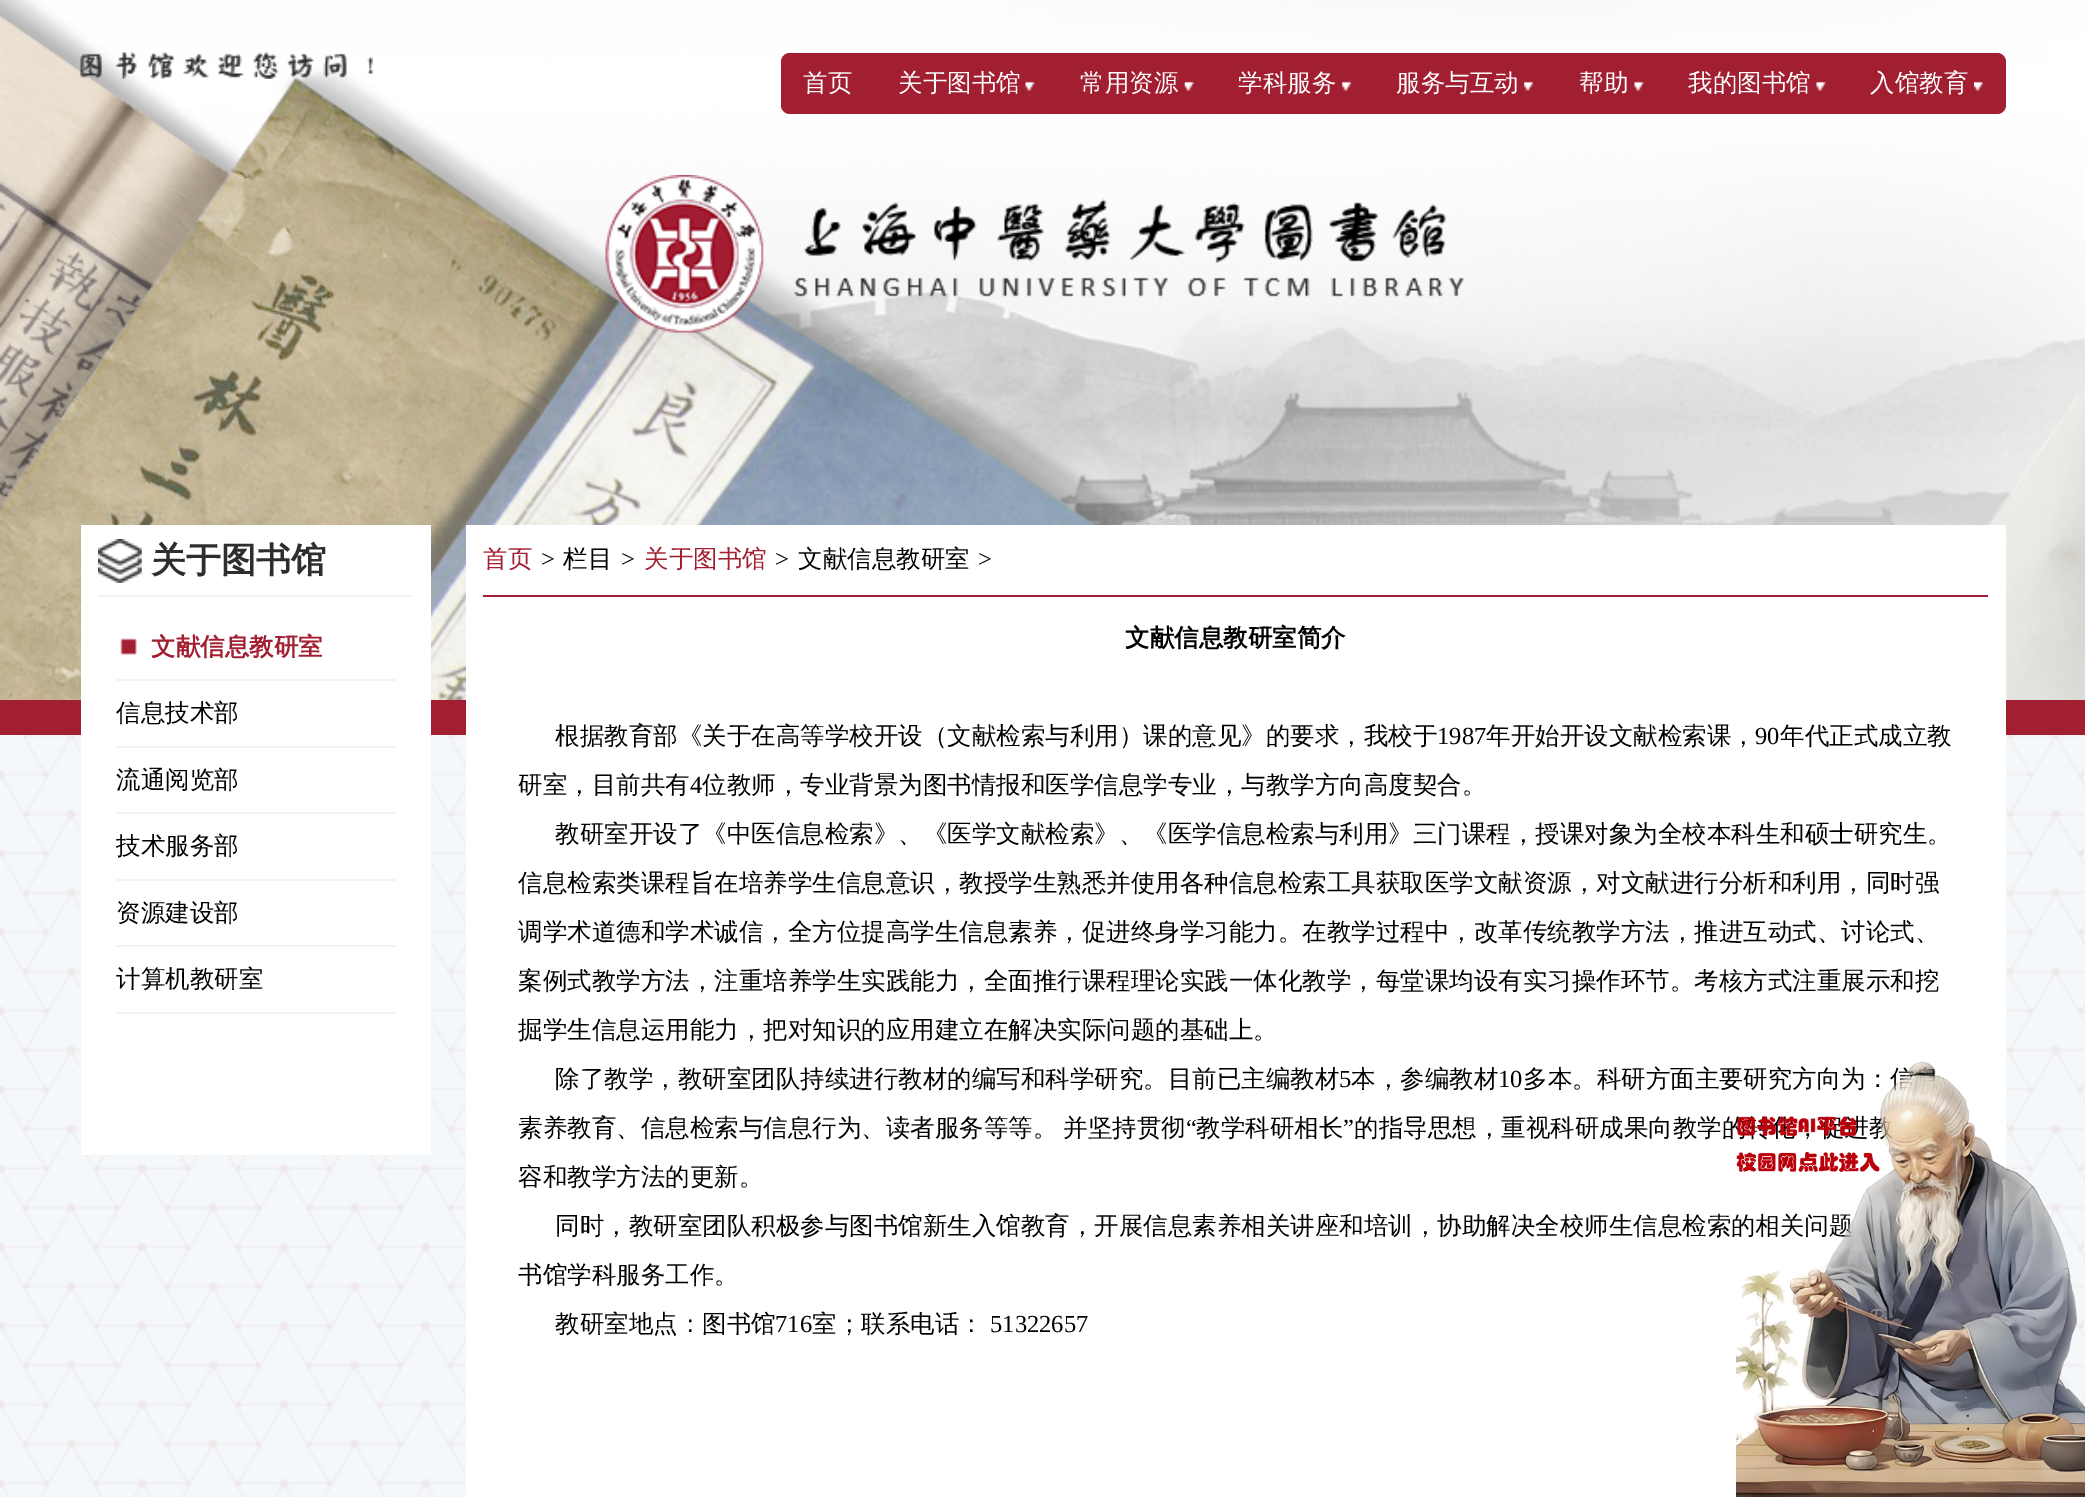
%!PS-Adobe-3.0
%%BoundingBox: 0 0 2085 1497
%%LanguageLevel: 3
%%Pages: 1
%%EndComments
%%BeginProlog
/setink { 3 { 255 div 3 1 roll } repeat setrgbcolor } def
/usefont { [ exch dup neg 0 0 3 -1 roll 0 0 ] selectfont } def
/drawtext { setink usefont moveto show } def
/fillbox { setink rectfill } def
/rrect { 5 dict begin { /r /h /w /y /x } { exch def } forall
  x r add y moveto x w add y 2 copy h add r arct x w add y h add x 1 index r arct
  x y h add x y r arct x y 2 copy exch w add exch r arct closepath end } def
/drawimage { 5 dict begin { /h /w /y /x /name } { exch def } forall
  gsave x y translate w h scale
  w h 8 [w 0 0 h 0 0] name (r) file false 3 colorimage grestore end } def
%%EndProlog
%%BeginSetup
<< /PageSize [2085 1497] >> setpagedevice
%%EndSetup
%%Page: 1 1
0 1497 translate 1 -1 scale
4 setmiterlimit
0 0 2085 1497 255 255 255 fillbox
(assets/img1.rgb) 0 0 2085 700 drawimage
(assets/img2.rgb) 80 52 293 27 drawimage
162 30 49 setink
781 53 1225 61 9 rrect fill
(首页) 803 91 /WenQuanYiZenHei-Medium 24.5 255 255 255 drawtext
(关于图书馆) 898 91 /WenQuanYiZenHei-Medium 24.5 255 255 255 drawtext
(assets/img3.rgb) 1025 81 10 10 drawimage
(常用资源) 1080 91 /WenQuanYiZenHei-Medium 24.5 255 255 255 drawtext
(assets/img4.rgb) 1184 81 10 10 drawimage
(学科服务) 1238 91 /WenQuanYiZenHei-Medium 24.5 255 255 255 drawtext
(assets/img5.rgb) 1342 81 9 10 drawimage
(服务与互动) 1396 91 /WenQuanYiZenHei-Medium 24.5 255 255 255 drawtext
(assets/img6.rgb) 1524 81 9 10 drawimage
(帮助) 1579 91 /WenQuanYiZenHei-Medium 24.5 255 255 255 drawtext
(assets/img7.rgb) 1634 81 10 10 drawimage
(我的图书馆) 1688 91 /WenQuanYiZenHei-Medium 24.5 255 255 255 drawtext
(assets/img7.rgb) 1816 81 10 10 drawimage
(入馆教育) 1870 91 /WenQuanYiZenHei-Medium 24.5 255 255 255 drawtext
(assets/img8.rgb) 1974 81 9 10 drawimage
(assets/img9.rgb) 605 175 859 158 drawimage
0 700 2085 35 162 30 49 fillbox
(assets/img10.rgb) 0 735 2085 762 drawimage
81 525 350 630 255 255 255 fillbox
98 595 315 2 243 243 243 fillbox
(assets/img11.rgb) 98 539 44 44 drawimage
(关于图书馆) 151 572 /WenQuanYiZenHei-Bold 35 46 46 46 drawtext
116 679 280 2 243 243 243 fillbox
(assets/img12.rgb) 120 638 17 17 drawimage
(文献信息教研室) 151 655 /WenQuanYiZenHei-Bold 24.5 162 30 49 drawtext
116 746 280 2 243 243 243 fillbox
(信息技术部) 116 721 /WenQuanYiZenHei-Medium 24.5 0 0 0 drawtext
116 812 280 2 243 243 243 fillbox
(流通阅览部) 116 788 /WenQuanYiZenHei-Medium 24.5 0 0 0 drawtext
116 879 280 2 243 243 243 fillbox
gsave
116 814 280 65 rectclip
(技术服务部) 116 854 /WenQuanYiZenHei-Medium 24.5 0 0 0 drawtext
grestore
116 945 280 2 243 243 243 fillbox
(资源建设部) 116 921 /WenQuanYiZenHei-Medium 24.5 0 0 0 drawtext
116 1012 280 2 243 243 243 fillbox
(计算机教研室) 116 987 /WenQuanYiZenHei-Medium 24.5 0 0 0 drawtext
466 525 1540 972 255 255 255 fillbox
483 595 1505 2 162 30 49 fillbox
(首页) 483 567 /WenQuanYiZenHei-Medium 24.5 162 30 49 drawtext
(>) 541 567 /LiberationSerif-Regular 24.5 0 0 0 drawtext
(栏目) 563 567 /WenQuanYiZenHei-Medium 24.5 0 0 0 drawtext
(>) 621 567 /LiberationSerif-Regular 24.5 0 0 0 drawtext
(关于图书馆) 644 567 /WenQuanYiZenHei-Medium 24.5 162 30 49 drawtext
(>) 775 567 /LiberationSerif-Regular 24.5 0 0 0 drawtext
(文献信息教研室) 798 567 /WenQuanYiZenHei-Medium 24.5 0 0 0 drawtext
(>) 978 567 /LiberationSerif-Regular 24.5 0 0 0 drawtext
(文献信息教研室简介) 1125 646 /WenQuanYiZenHei-Bold 24.5 0 0 0 drawtext
(根据教育部《关于在高等学校开设（文献检索与利用）课的意见》的要求，我校于) 555 744 /WenQuanYiZenHei-Medium 24.5 0 0 0 drawtext
(1987) 1437 744 /LiberationSerif-Regular 24.5 0 0 0 drawtext
(年开始开设文献检索课，) 1486 744 /WenQuanYiZenHei-Medium 24.5 0 0 0 drawtext
(90) 1755 744 /LiberationSerif-Regular 24.5 0 0 0 drawtext
(年代正式成立教) 1780 744 /WenQuanYiZenHei-Medium 24.5 0 0 0 drawtext
(研室，目前共有) 518 793 /WenQuanYiZenHei-Medium 24.5 0 0 0 drawtext
(4) 690 793 /LiberationSerif-Regular 24.5 0 0 0 drawtext
(位教师，专业背景为图书情报和医学信息学专业，与教学方向高度契合。) 702 793 /WenQuanYiZenHei-Medium 24.5 0 0 0 drawtext
(教研室开设了《中医信息检索》、《医学文献检索》、《医学信息检索与利用》三门课程，授课对象为全校本科生和硕士研究生。) 555 842 /WenQuanYiZenHei-Medium 24.5 0 0 0 drawtext
(信息检索类课程旨在培养学生信息意识，教授学生熟悉并使用各种信息检索工具获取医学文献资源，对文献进行分析和利用，同时强) 518 891 /WenQuanYiZenHei-Medium 24.5 0 0 0 drawtext
(调学术道德和学术诚信，全方位提高学生信息素养，促进终身学习能力。在教学过程中，改革传统教学方法，推进互动式、讨论式、) 518 940 /WenQuanYiZenHei-Medium 24.5 0 0 0 drawtext
(案例式教学方法，注重培养学生实践能力，全面推行课程理论实践一体化教学，每堂课均设有实习操作环节。考核方式注重展示和挖) 518 989 /WenQuanYiZenHei-Medium 24.5 0 0 0 drawtext
(掘学生信息运用能力，把对知识的应用建立在解决实际问题的基础上。) 518 1038 /WenQuanYiZenHei-Medium 24.5 0 0 0 drawtext
(除了教学，教研室团队持续进行教材的编写和科学研究。目前已主编教材) 555 1087 /WenQuanYiZenHei-Medium 24.5 0 0 0 drawtext
(5) 1339 1087 /LiberationSerif-Regular 24.5 0 0 0 drawtext
(本，参编教材) 1351 1087 /WenQuanYiZenHei-Medium 24.5 0 0 0 drawtext
(10) 1498 1087 /LiberationSerif-Regular 24.5 0 0 0 drawtext
(多本。科研方面主要研究方向为：信) 1523 1087 /WenQuanYiZenHei-Medium 24.5 0 0 0 drawtext
(素养教育、信息检索与信息行为、读者服务等等。) 518 1136 /WenQuanYiZenHei-Medium 24.5 0 0 0 drawtext
(并坚持贯彻) 1063 1136 /WenQuanYiZenHei-Medium 24.5 0 0 0 drawtext
(“) 1186 1136 /LiberationSerif-Regular 24.5 0 0 0 drawtext
(教学科研相长) 1196 1136 /WenQuanYiZenHei-Medium 24.5 0 0 0 drawtext
(”) 1343 1136 /LiberationSerif-Regular 24.5 0 0 0 drawtext
(的指导思想，重视科研成果向教学的转化，促进教) 1354 1136 /WenQuanYiZenHei-Medium 24.5 0 0 0 drawtext
(容和教学方法的更新。) 518 1185 /WenQuanYiZenHei-Medium 24.5 0 0 0 drawtext
(同时，教研室团队积极参与图书馆新生入馆教育，开展信息素养相关讲座和培训，协助解决全校师生信息检索的相关问题) 555 1234 /WenQuanYiZenHei-Medium 24.5 0 0 0 drawtext
(书馆学科服务工作。) 518 1283 /WenQuanYiZenHei-Medium 24.5 0 0 0 drawtext
(教研室地点：图书馆) 555 1332 /WenQuanYiZenHei-Medium 24.5 0 0 0 drawtext
(716) 775 1332 /LiberationSerif-Regular 24.5 0 0 0 drawtext
(室；联系电话：) 812 1332 /WenQuanYiZenHei-Medium 24.5 0 0 0 drawtext
(51322657) 990 1332 /LiberationSerif-Regular 24.5 0 0 0 drawtext
(assets/img13.rgb) 1736 1061 349 436 drawimage
showpage
%%EOF
